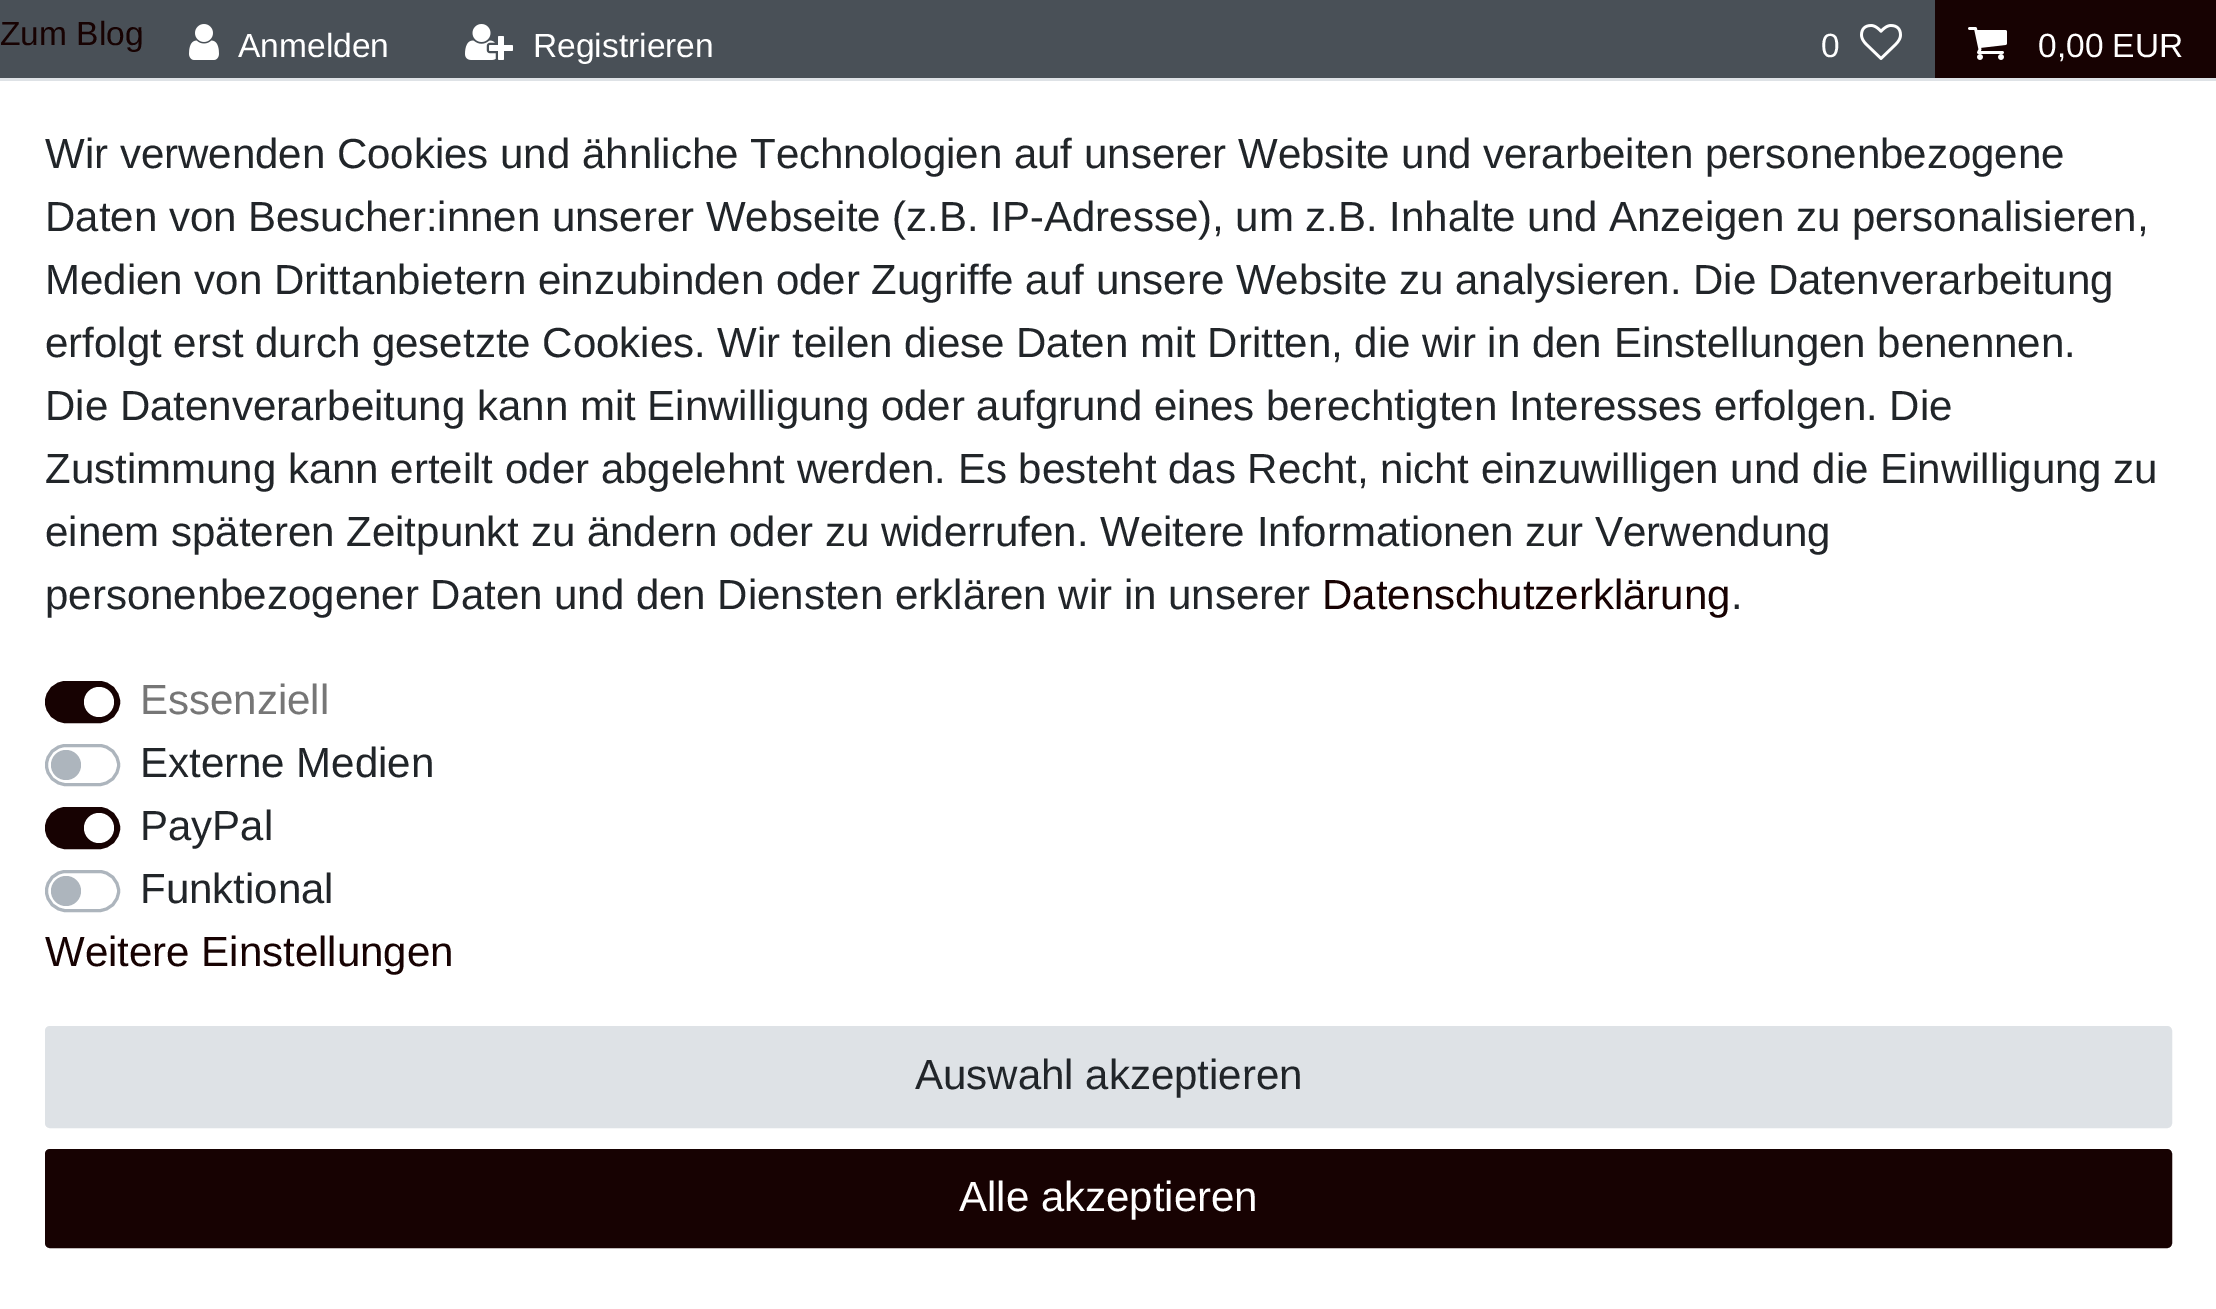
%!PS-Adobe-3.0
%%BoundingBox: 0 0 2216 1309
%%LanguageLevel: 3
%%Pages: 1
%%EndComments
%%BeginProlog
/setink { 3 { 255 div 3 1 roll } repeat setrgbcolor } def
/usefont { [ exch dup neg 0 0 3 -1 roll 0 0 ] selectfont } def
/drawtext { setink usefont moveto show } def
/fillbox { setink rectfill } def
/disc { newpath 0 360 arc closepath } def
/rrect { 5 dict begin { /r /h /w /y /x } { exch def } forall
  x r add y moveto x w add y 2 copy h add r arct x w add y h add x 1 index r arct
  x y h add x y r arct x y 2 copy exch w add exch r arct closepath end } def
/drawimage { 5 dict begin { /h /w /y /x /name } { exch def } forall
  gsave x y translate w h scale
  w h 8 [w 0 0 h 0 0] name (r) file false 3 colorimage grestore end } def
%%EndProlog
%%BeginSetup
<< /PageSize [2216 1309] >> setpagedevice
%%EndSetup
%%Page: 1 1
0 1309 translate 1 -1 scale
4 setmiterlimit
0 0 2216 1309 73 80 87 fillbox
(Zum Blog) 0 45 /LiberationSans-Regular 33.5 23 2 2 drawtext
(assets/img1.rgb) 189 24 30 36 drawimage
(Anmelden) 238 57 /LiberationSans-Regular 33.5 255 255 255 drawtext
(assets/img2.rgb) 465 24 48 36 drawimage
(Registrieren) 533 57 /LiberationSans-Regular 33.5 255 255 255 drawtext
(0) 1821 57 /LiberationSans-Regular 33.5 255 255 255 drawtext
(assets/img3.rgb) 1860 24 42 36 drawimage
1935 0 281 78 23 2 2 fillbox
(assets/img4.rgb) 1968 27 39 33 drawimage
(0,00 EUR) 2038 57 /LiberationSans-Regular 33.5 255 255 255 drawtext
0 81 2216 1228 255 255 255 fillbox
0 78 2216 3 222 226 230 fillbox
(Wir verwenden Cookies und ähnliche Technologien auf unserer Website und verarbeiten personenbezogene) 45 168 /LiberationSans-Regular 42 33 37 41 drawtext
(Daten von Besucher:innen unserer Webseite \(z.B. IP-Adresse\), um z.B. Inhalte und Anzeigen zu personalisieren,) 45 231 /LiberationSans-Regular 42 33 37 41 drawtext
(Medien von Drittanbietern einzubinden oder Zugriffe auf unsere Website zu analysieren. Die Datenverarbeitung) 45 294 /LiberationSans-Regular 42 33 37 41 drawtext
(erfolgt erst durch gesetzte Cookies. Wir teilen diese Daten mit Dritten, die wir in den Einstellungen benennen.) 45 357 /LiberationSans-Regular 42 33 37 41 drawtext
(Die Datenverarbeitung kann mit Einwilligung oder aufgrund eines berechtigten Interesses erfolgen. Die) 45 420 /LiberationSans-Regular 42 33 37 41 drawtext
(Zustimmung kann erteilt oder abgelehnt werden. Es besteht das Recht, nicht einzuwilligen und die Einwilligung zu) 45 483 /LiberationSans-Regular 42 33 37 41 drawtext
(einem späteren Zeitpunkt zu ändern oder zu widerrufen. Weitere Informationen zur Verwendung) 45 546 /LiberationSans-Regular 42 33 37 41 drawtext
(personenbezogener Daten und den Diensten erklären wir in unserer) 45 609 /LiberationSans-Regular 42 33 37 41 drawtext
(Datenschutzerklärung) 1322 609 /LiberationSans-Regular 42 23 2 2 drawtext
(.) 1731 609 /LiberationSans-Regular 42 33 37 41 drawtext
23 2 2 setink
46.5 682.5 72 39 19.5 rrect gsave fill grestore
3 setlinewidth
stroke
(Essenziell) 140 714 /LiberationSans-Regular 42 118 118 118 drawtext
255 255 255 setink
99 702 15 disc fill
173 181 189 setink
46.5 745.5 72 39 19.5 rrect stroke
(Externe Medien) 140 777 /LiberationSans-Regular 42 33 37 41 drawtext
173 181 189 setink
66 765 15 disc fill
23 2 2 setink
46.5 808.5 72 39 19.5 rrect gsave fill grestore
stroke
(PayPal) 140 840 /LiberationSans-Regular 42 33 37 41 drawtext
255 255 255 setink
99 828 15 disc fill
173 181 189 setink
46.5 871.5 72 39 19.5 rrect stroke
(Funktional) 140 903 /LiberationSans-Regular 42 33 37 41 drawtext
173 181 189 setink
66 891 15 disc fill
(Weitere Einstellungen) 45 966 /LiberationSans-Regular 42 23 2 2 drawtext
222 226 230 setink
46.5 1027.5 2124 99 3.5 rrect gsave fill grestore
stroke
(Auswahl akzeptieren) 915 1089 /LiberationSans-Regular 42 33 37 41 drawtext
23 2 2 setink
46.5 1150.5 2124 96 3.5 rrect gsave fill grestore
stroke
(Alle akzeptieren) 959 1211 /LiberationSans-Regular 42 255 255 255 drawtext
showpage
%%EOF
